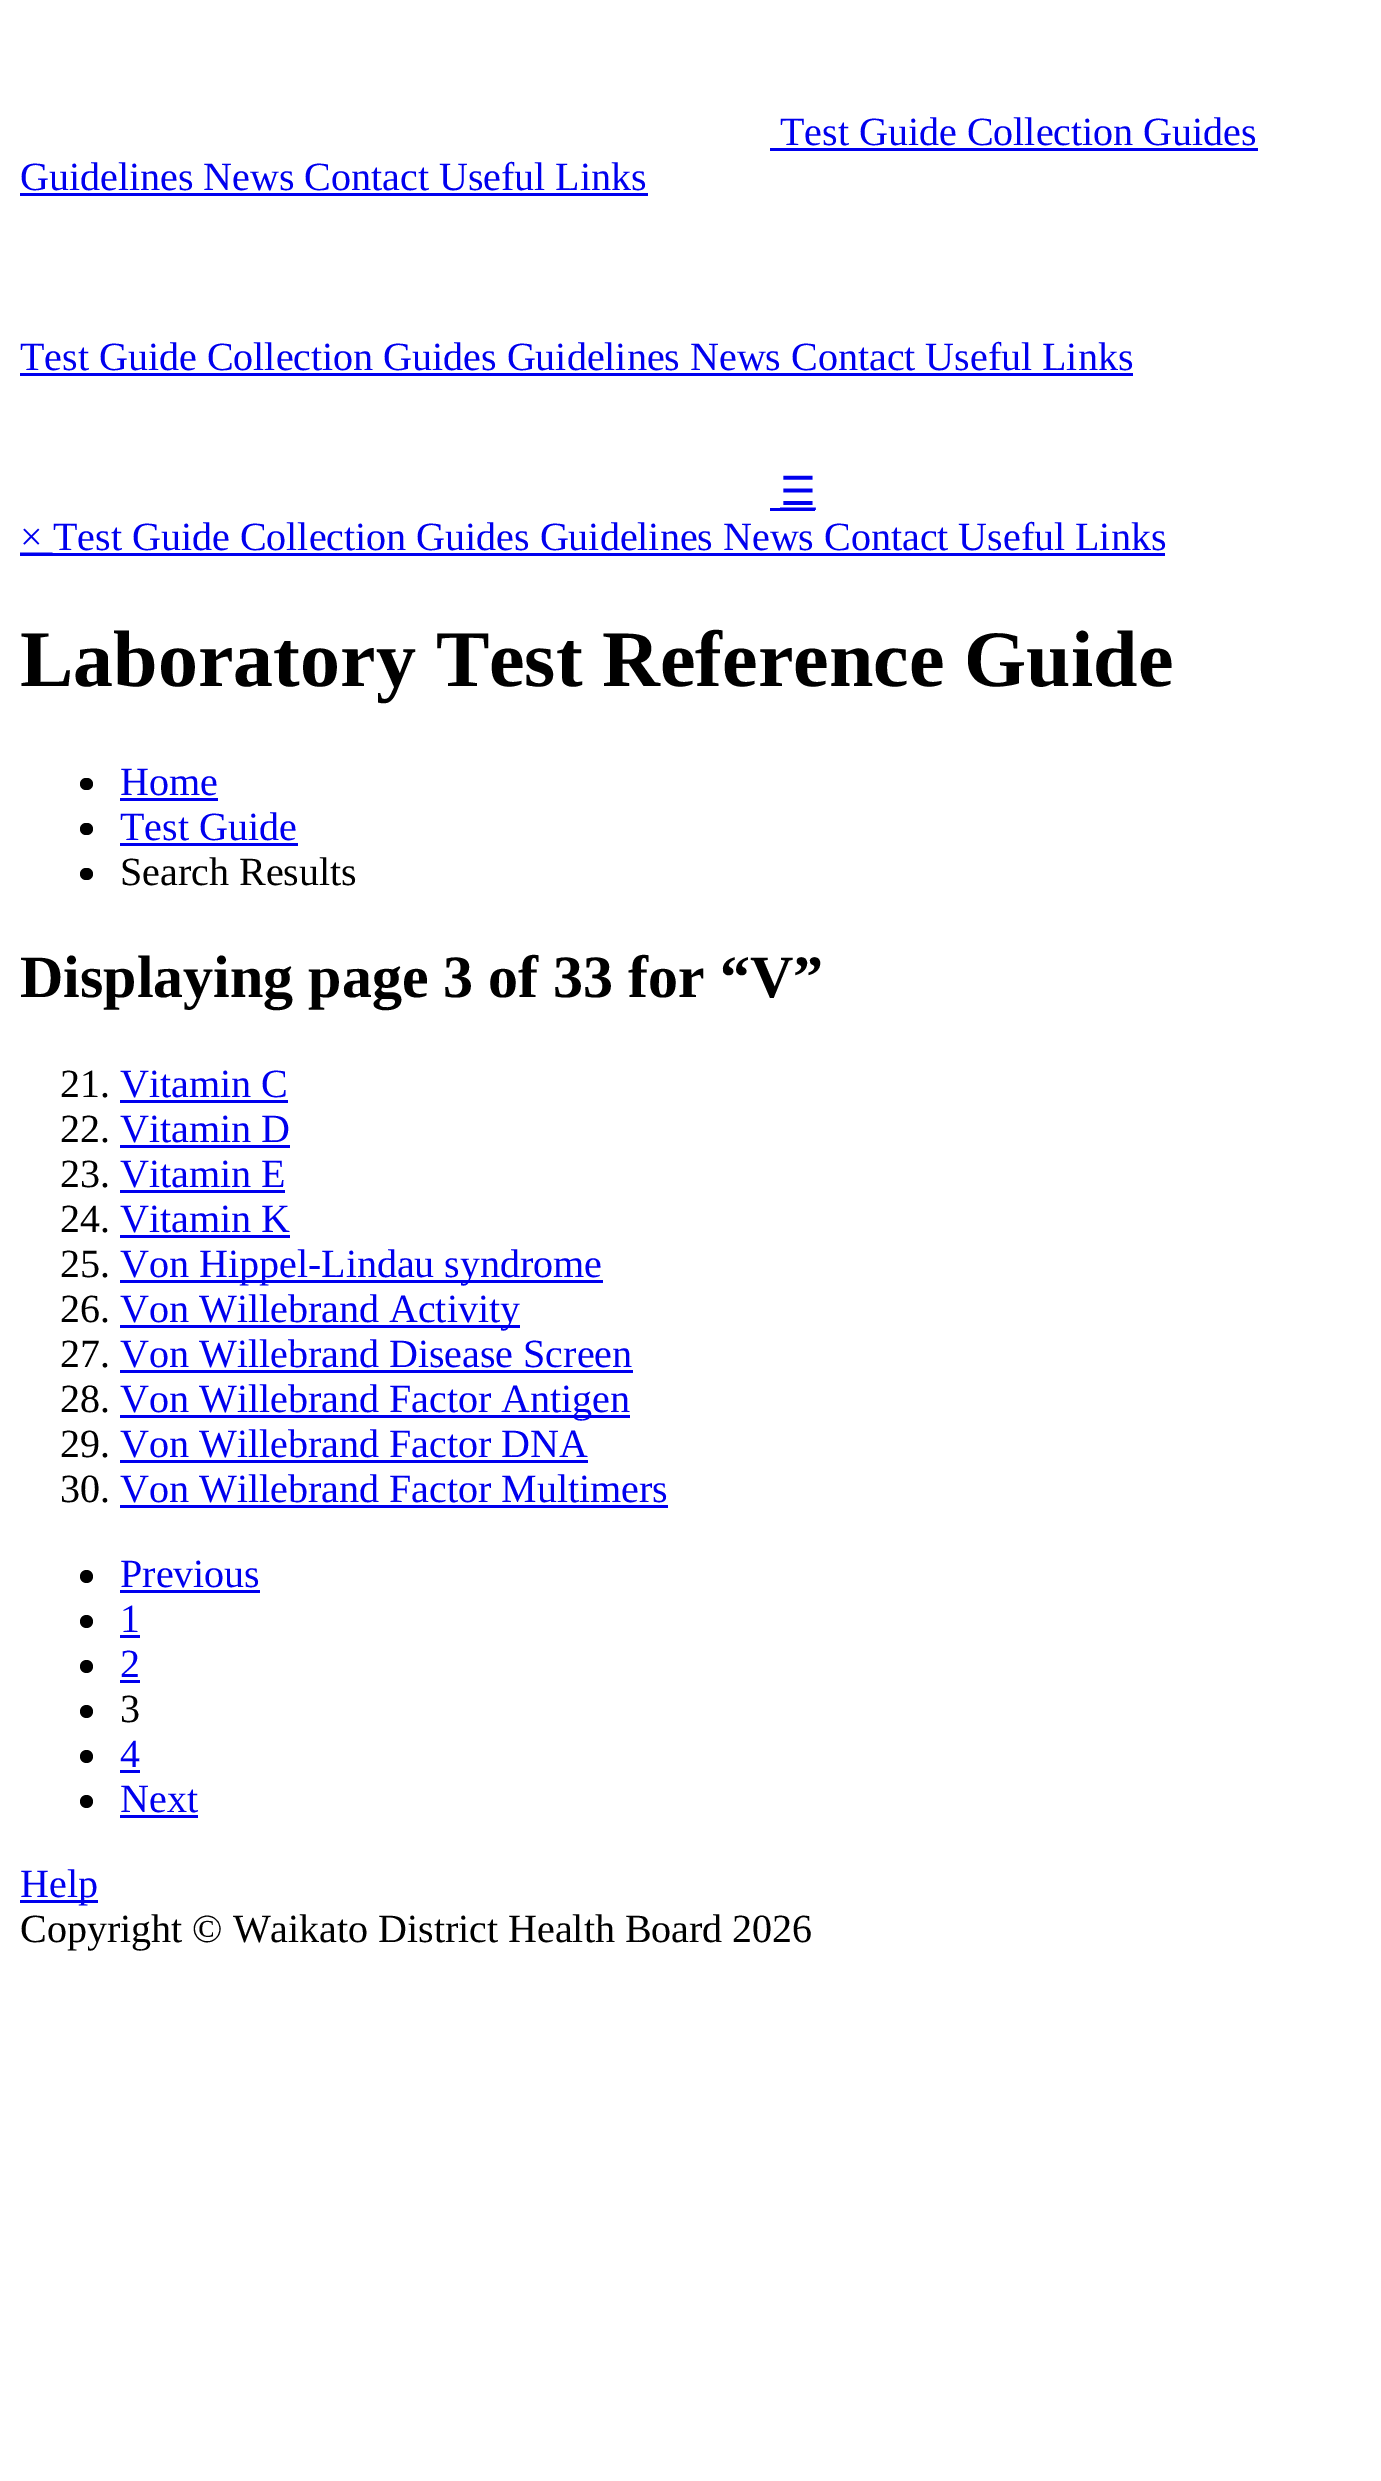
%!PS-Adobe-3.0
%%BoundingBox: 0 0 1381 2481
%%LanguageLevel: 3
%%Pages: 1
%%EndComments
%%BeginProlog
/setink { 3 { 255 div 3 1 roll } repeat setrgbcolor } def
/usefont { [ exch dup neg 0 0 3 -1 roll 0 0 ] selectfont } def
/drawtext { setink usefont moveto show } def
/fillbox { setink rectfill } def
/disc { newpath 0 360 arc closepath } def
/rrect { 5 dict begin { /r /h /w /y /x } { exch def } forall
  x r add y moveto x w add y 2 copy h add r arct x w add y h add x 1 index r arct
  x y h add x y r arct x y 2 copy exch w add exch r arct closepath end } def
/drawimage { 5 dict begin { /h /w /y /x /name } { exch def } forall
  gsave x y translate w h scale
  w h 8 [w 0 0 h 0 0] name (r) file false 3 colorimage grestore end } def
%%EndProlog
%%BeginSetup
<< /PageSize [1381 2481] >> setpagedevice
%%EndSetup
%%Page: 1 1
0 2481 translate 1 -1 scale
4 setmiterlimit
0 0 1381 2481 255 255 255 fillbox
(Test Guide Collection Guides) 780 145 /LiberationSerif-Regular 40 0 0 238 drawtext
770 148 488 3 0 0 238 fillbox
(Guidelines News Contact Useful Links) 20 190 /LiberationSerif-Regular 40 0 0 238 drawtext
20 193 628 3 0 0 238 fillbox
(Test Guide Collection Guides Guidelines News Contact Useful Links) 20 370 /LiberationSerif-Regular 40 0 0 238 drawtext
20 373 1113 3 0 0 238 fillbox
770 508 10 3 0 0 238 fillbox
(assets/img1.rgb) 780 475 36 35 drawimage
780 510 35 1 0 0 238 fillbox
(assets/img2.rgb) 20 528 33 25 drawimage
(Test Guide Collection Guides Guidelines News Contact Useful Links) 53 550 /LiberationSerif-Regular 40 0 0 238 drawtext
20 553 1145 3 0 0 238 fillbox
(Laboratory Test Reference Guide) 20 686 /LiberationSerif-Bold 80 0 0 0 drawtext
80 778 13 12 6 rrect fill
(Home) 120 795 /LiberationSerif-Regular 40 0 0 238 drawtext
120 798 98 3 0 0 238 fillbox
0 0 0 setink
80 823 13 12 6 rrect fill
(Test Guide) 120 840 /LiberationSerif-Regular 40 0 0 238 drawtext
120 843 178 3 0 0 238 fillbox
0 0 0 setink
80 868 13 12 6 rrect fill
(Search Results) 120 885 /LiberationSerif-Regular 40 0 0 0 drawtext
(Displaying page 3 of 33 for “V”) 20 997 /LiberationSerif-Bold 60 0 0 0 drawtext
(21.) 60 1097 /LiberationSerif-Regular 40 0 0 0 drawtext
(Vitamin C) 120 1097 /LiberationSerif-Regular 40 0 0 238 drawtext
120 1100 168 3 0 0 238 fillbox
(22.) 60 1142 /LiberationSerif-Regular 40 0 0 0 drawtext
(Vitamin D) 120 1142 /LiberationSerif-Regular 40 0 0 238 drawtext
120 1145 170 3 0 0 238 fillbox
(23.) 60 1187 /LiberationSerif-Regular 40 0 0 0 drawtext
(Vitamin E) 120 1187 /LiberationSerif-Regular 40 0 0 238 drawtext
120 1190 165 3 0 0 238 fillbox
(24.) 60 1232 /LiberationSerif-Regular 40 0 0 0 drawtext
(Vitamin K) 120 1232 /LiberationSerif-Regular 40 0 0 238 drawtext
120 1235 170 3 0 0 238 fillbox
(25.) 60 1277 /LiberationSerif-Regular 40 0 0 0 drawtext
120 1280 483 3 0 0 238 fillbox
(Von Hippel-Lindau syndrome) 120 1277 /LiberationSerif-Regular 40 0 0 238 drawtext
(26.) 60 1322 /LiberationSerif-Regular 40 0 0 0 drawtext
120 1325 400 3 0 0 238 fillbox
(Von Willebrand Activity) 120 1322 /LiberationSerif-Regular 40 0 0 238 drawtext
(27.) 60 1367 /LiberationSerif-Regular 40 0 0 0 drawtext
(Von Willebrand Disease Screen) 120 1367 /LiberationSerif-Regular 40 0 0 238 drawtext
120 1370 513 3 0 0 238 fillbox
(28.) 60 1412 /LiberationSerif-Regular 40 0 0 0 drawtext
120 1415 510 3 0 0 238 fillbox
(Von Willebrand Factor Antigen) 120 1412 /LiberationSerif-Regular 40 0 0 238 drawtext
(29.) 60 1457 /LiberationSerif-Regular 40 0 0 0 drawtext
(Von Willebrand Factor DNA) 120 1457 /LiberationSerif-Regular 40 0 0 238 drawtext
120 1460 468 3 0 0 238 fillbox
(30.) 60 1502 /LiberationSerif-Regular 40 0 0 0 drawtext
(Von Willebrand Factor Multimers) 120 1502 /LiberationSerif-Regular 40 0 0 238 drawtext
120 1505 548 3 0 0 238 fillbox
0 0 0 setink
86.5 1576.5 6.5 disc fill
(Previous) 120 1587 /LiberationSerif-Regular 40 0 0 238 drawtext
120 1590 140 3 0 0 238 fillbox
0 0 0 setink
86.5 1621.5 6.5 disc fill
(1) 120 1632 /LiberationSerif-Regular 40 0 0 238 drawtext
120 1635 20 3 0 0 238 fillbox
0 0 0 setink
86.5 1666.5 6.5 disc fill
(2) 120 1677 /LiberationSerif-Regular 40 0 0 238 drawtext
120 1680 20 3 0 0 238 fillbox
0 0 0 setink
86.5 1711.5 6.5 disc fill
(3) 120 1722 /LiberationSerif-Regular 40 0 0 0 drawtext
86.5 1756.5 6.5 disc fill
(4) 120 1767 /LiberationSerif-Regular 40 0 0 238 drawtext
120 1770 20 3 0 0 238 fillbox
0 0 0 setink
86.5 1801.5 6.5 disc fill
(Next) 120 1812 /LiberationSerif-Regular 40 0 0 238 drawtext
120 1815 78 3 0 0 238 fillbox
20 1900 78 3 0 0 238 fillbox
(Help) 20 1897 /LiberationSerif-Regular 40 0 0 238 drawtext
(Copyright © Waikato District Health Board 2026) 20 1942 /LiberationSerif-Regular 40 0 0 0 drawtext
showpage
%%EOF
